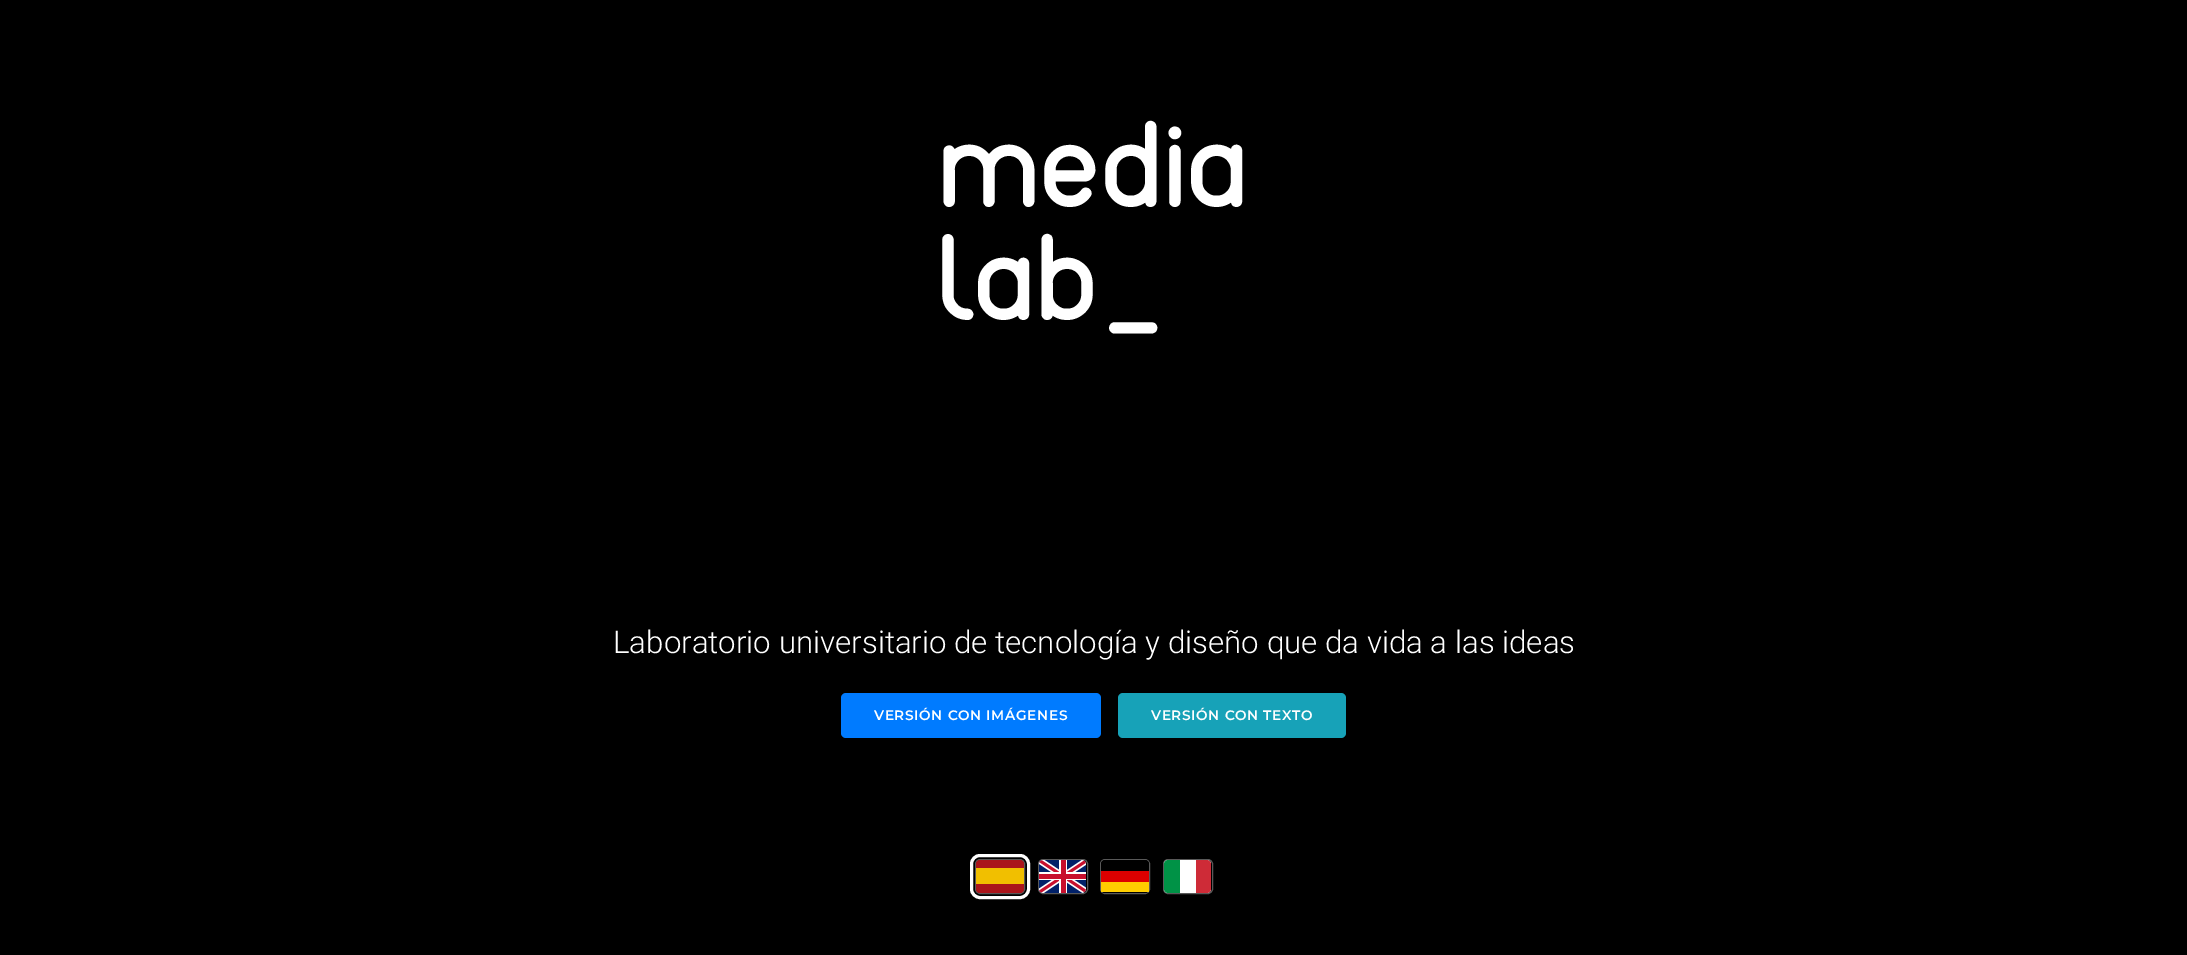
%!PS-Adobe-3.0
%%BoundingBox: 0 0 2187 955
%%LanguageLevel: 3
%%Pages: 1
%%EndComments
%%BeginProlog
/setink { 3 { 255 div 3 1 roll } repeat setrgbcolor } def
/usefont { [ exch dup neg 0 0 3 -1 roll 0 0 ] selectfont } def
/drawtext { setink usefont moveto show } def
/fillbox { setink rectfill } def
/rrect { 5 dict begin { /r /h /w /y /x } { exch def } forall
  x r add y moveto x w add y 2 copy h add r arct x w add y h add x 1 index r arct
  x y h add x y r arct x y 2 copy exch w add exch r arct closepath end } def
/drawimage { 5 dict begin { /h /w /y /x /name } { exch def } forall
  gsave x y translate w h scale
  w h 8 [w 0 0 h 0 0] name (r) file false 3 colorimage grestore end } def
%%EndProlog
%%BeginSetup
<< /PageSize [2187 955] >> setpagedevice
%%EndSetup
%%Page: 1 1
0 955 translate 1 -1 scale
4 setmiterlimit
0 0 2187 955 0 0 0 fillbox
/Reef-Bold 125 usefont
255 255 255 setink
938 207 moveto 1.25 0 (media) ashow
938 320 moveto 1.25 0 (lab) ashow
1106 320 moveto 1.25 0 (_) ashow
(Laboratorio universitario de tecnología y diseño que da vida a las ideas) 613 653 /Roboto-Light 31.25 255 255 255 drawtext
0 123 255 setink
841 693 260 45 5 rrect fill
/Montserrat-SemiBold 13.75 usefont
255 255 255 setink
874 720 moveto 0.6 0 (VERSIÓN CON IMÁGENES) ashow
23 162 184 setink
1118 693 228 45 5 rrect fill
255 255 255 setink
1151 720 moveto 0.6 0 (VERSIÓN CON TEXTO) ashow
89 89 89 setink
975.5 859.5 49 34 4.5 rrect stroke
170 21 27 setink
976 860 48 33 4 rrect fill
976 868 48 16 241 191 0 fillbox
255 255 255 setink
3 setlinewidth
971.5 855.5 57 42 8.5 rrect stroke
89 89 89 setink
1 setlinewidth
1038.5 859.5 49 34 4.5 rrect stroke
(assets/img1.rgb) 1039 860 47 33 drawimage
1100.5 859.5 49 34 4.5 rrect stroke
0 0 0 setink
1101 860 48 33 4 rrect fill
gsave
1101 860 48 33 4 rrect clip newpath
1101 871 48 21 221 0 0 fillbox
1101 882 48 10 255 206 0 fillbox
grestore
89 89 89 setink
1163.5 859.5 49 34 4.5 rrect stroke
255 255 255 setink
1164 860 47 33 4 rrect fill
0 146 70 setink
1168 860 moveto 1180 860 lineto 1180 893 lineto 1168 893 lineto 1166 893 1164 891 1164 889 curveto 1164 864 lineto 1164 862 1166 860 1168 860 curveto closepath fill
206 43 55 setink
1196 860 moveto 1207 860 lineto 1209 860 1211 862 1211 864 curveto 1211 889 lineto 1211 891 1209 893 1207 893 curveto 1196 893 lineto closepath fill
showpage
%%EOF
